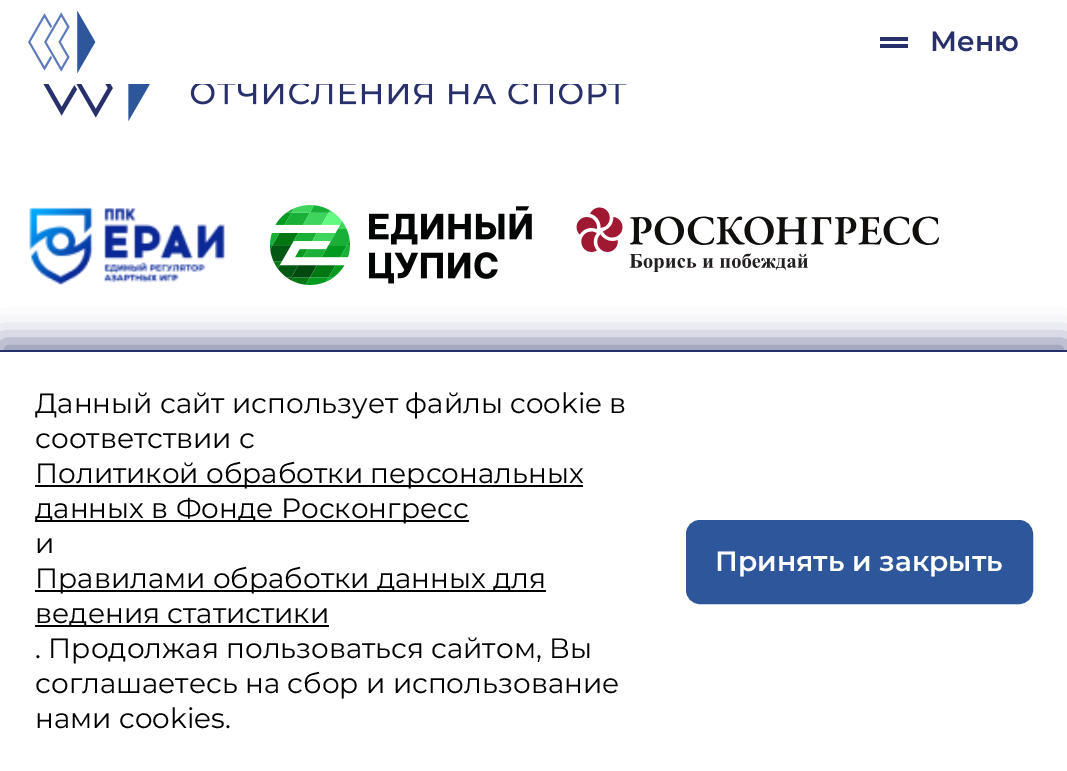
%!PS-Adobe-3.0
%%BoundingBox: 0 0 1067 771
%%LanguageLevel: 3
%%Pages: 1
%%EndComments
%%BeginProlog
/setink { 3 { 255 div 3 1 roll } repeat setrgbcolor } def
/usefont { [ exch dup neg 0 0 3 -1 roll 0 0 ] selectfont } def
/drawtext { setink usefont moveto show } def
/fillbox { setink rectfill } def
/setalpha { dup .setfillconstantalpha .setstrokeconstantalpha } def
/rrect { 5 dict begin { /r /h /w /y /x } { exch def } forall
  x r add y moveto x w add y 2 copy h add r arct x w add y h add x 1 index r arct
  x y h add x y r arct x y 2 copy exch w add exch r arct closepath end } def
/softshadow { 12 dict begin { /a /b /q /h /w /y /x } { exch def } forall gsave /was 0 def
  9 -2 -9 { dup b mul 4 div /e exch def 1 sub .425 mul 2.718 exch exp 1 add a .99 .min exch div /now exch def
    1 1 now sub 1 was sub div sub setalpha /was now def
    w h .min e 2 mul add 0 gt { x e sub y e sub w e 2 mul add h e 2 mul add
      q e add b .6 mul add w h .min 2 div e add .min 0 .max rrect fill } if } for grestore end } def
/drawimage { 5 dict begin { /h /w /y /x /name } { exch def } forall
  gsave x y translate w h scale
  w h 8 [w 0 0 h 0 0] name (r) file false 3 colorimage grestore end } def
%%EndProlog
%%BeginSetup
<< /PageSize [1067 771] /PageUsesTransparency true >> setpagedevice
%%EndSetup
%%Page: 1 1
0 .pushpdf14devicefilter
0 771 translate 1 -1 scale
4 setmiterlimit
0 0 1067 771 255 255 255 fillbox
(assets/img1.rgb) 28 11 68 63 drawimage
880 37 28 4 40 48 107 fillbox
880 44 28 4 40 48 107 fillbox
(Меню) 930 51 /Montserrat-SemiBold 28 40 48 107 drawtext
(assets/img2.rgb) 43 84 584 37 drawimage
(assets/img3.rgb) 29 207 196 79 drawimage
(assets/img4.rgb) 270 205 262 80 drawimage
(assets/img5.rgb) 576 207 363 65 drawimage
0 341 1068 422 0 15 0.6 softshadow
0 352 1067 419 255 255 255 fillbox
0 350 1067 2 40 48 107 fillbox
(Данный сайт использует файлы cookie в) 35 413 /Montserrat-Regular 28 0 0 0 drawtext
(соответствии с) 35 448 /Montserrat-Regular 28 0 0 0 drawtext
35 485 548 2 0 0 0 fillbox
(Политикой обработки персональных) 35 483 /Montserrat-Regular 28 0 0 0 drawtext
35 520 434 2 0 0 0 fillbox
(данных в Фонде Росконгресс) 35 518 /Montserrat-Regular 28 0 0 0 drawtext
(и) 35 553 /Montserrat-Regular 28 0 0 0 drawtext
35 590 511 2 0 0 0 fillbox
(Правилами обработки данных для) 35 588 /Montserrat-Regular 28 0 0 0 drawtext
35 625 294 2 0 0 0 fillbox
(ведения статистики) 35 623 /Montserrat-Regular 28 0 0 0 drawtext
(. Продолжая пользоваться сайтом, Вы) 35 658 /Montserrat-Regular 28 0 0 0 drawtext
(соглашаетесь на сбор и использование) 35 693 /Montserrat-Regular 28 0 0 0 drawtext
(нами cookies.) 35 728 /Montserrat-Regular 28 0 0 0 drawtext
45 87 154 setink
687 521 345 82 13 rrect gsave fill grestore
2 setlinewidth
stroke
(Принять и закрыть) 715 571 /Montserrat-SemiBold 28 255 255 255 drawtext
.poppdf14devicefilter showpage
%%EOF
